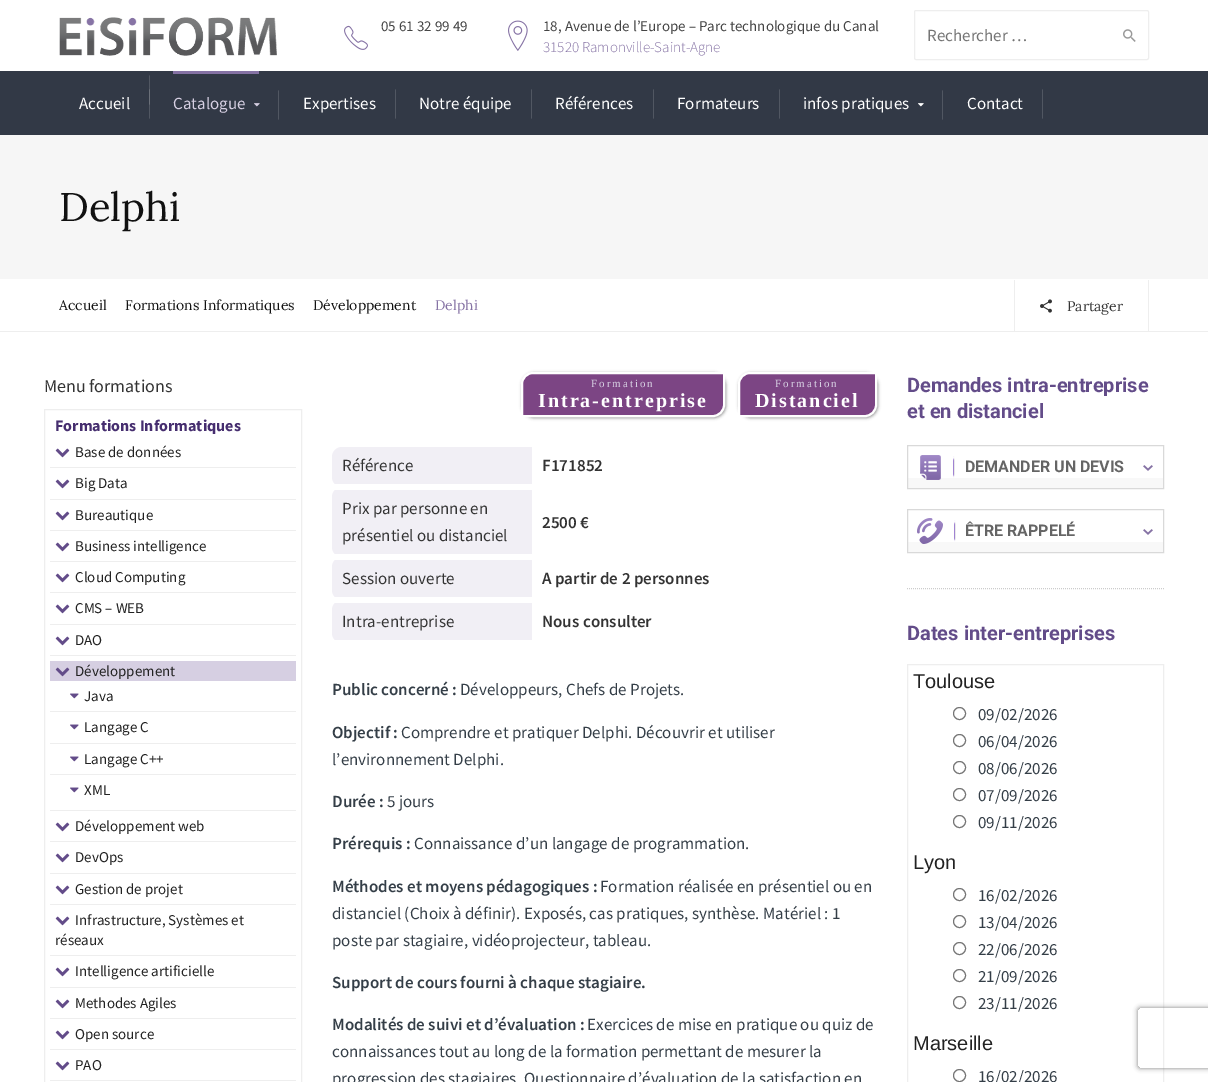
%!PS-Adobe-3.0
%%BoundingBox: 0 0 1208 1082
%%LanguageLevel: 3
%%Pages: 1
%%EndComments
%%BeginProlog
/setink { 3 { 255 div 3 1 roll } repeat setrgbcolor } def
/usefont { [ exch dup neg 0 0 3 -1 roll 0 0 ] selectfont } def
/drawtext { setink usefont moveto show } def
/fillbox { setink rectfill } def
/setalpha { dup .setfillconstantalpha .setstrokeconstantalpha } def
/disc { newpath 0 360 arc closepath } def
/rrect { 5 dict begin { /r /h /w /y /x } { exch def } forall
  x r add y moveto x w add y 2 copy h add r arct x w add y h add x 1 index r arct
  x y h add x y r arct x y 2 copy exch w add exch r arct closepath end } def
/softshadow { 12 dict begin { /a /b /q /h /w /y /x } { exch def } forall gsave /was 0 def
  9 -2 -9 { dup b mul 4 div /e exch def 1 sub .425 mul 2.718 exch exp 1 add a .99 .min exch div /now exch def
    1 1 now sub 1 was sub div sub setalpha /was now def
    w h .min e 2 mul add 0 gt { x e sub y e sub w e 2 mul add h e 2 mul add
      q e add b .6 mul add w h .min 2 div e add .min 0 .max rrect fill } if } for grestore end } def
/drawimage { 5 dict begin { /h /w /y /x /name } { exch def } forall
  gsave x y translate w h scale
  w h 8 [w 0 0 h 0 0] name (r) file false 3 colorimage grestore end } def
%%EndProlog
%%BeginSetup
<< /PageSize [1208 1082] /PageUsesTransparency true >> setpagedevice
%%EndSetup
%%Page: 1 1
0 .pushpdf14devicefilter
0 1082 translate 1 -1 scale
4 setmiterlimit
0 0 1208 1082 255 255 255 fillbox
(assets/img1.rgb) 59 17 218 39 drawimage
(assets/img2.rgb) 344 25 24 25 drawimage
(05 61 32 99 49) 381 31 /SourceSansPro-Regular 15 68 68 68 drawtext
(18, Avenue de l’Europe – Parc technologique du Canal) 543 31 /SourceSansPro-Regular 15 68 68 68 drawtext
(assets/img3.rgb) 508 20 20 31 drawimage
(31520 Ramonville-Saint-Agne) 543 52 /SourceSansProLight-Light 15 133 114 164 drawtext
238 238 238 setink
914.5 10.5 234 49 1.5 rrect stroke
(Rechercher …) 927 41 /SourceSansPro-Regular 17 117 117 117 drawtext
(assets/img4.rgb) 1123 29 13 13 drawimage
0 71 1208 64 50 57 70 fillbox
(Accueil) 79 109 /SourceSansPro-Regular 17 255 255 255 drawtext
81 87 98 setink
149.5 75 moveto 150 75 150 81.5 150 90 curveto 150 98.5 150 105 149.5 105 curveto 149 105 149 98.5 149 90 curveto 149 81.5 149 75 149.5 75 curveto closepath fill
0.15 setalpha
255 255 255 setink
149.5 89 moveto 150 89 150 95.5 150 104 curveto 150 112.5 150 119 149.5 119 curveto 149 119 149 112.5 149 104 curveto 149 95.5 149 89 149.5 89 curveto closepath fill
1 setalpha
173 71 86 3 133 114 164 fillbox
(Catalogue) 173 109 /SourceSansPro-Regular 17 214 207 226 drawtext
(assets/img5.rgb) 254 103 6 4 drawimage
81 87 98 setink
278.5 90 moveto 279 90 279 96.5 279 105 curveto 279 113.5 279 120 278.5 120 curveto 278 120 278 113.5 278 105 curveto 278 96.5 278 90 278.5 90 curveto closepath fill
(Expertises) 303 109 /SourceSansPro-Regular 17 255 255 255 drawtext
81 87 98 setink
395.5 89 moveto 396 89 396 95.5 396 104 curveto 396 112.5 396 119 395.5 119 curveto 395 119 395 112.5 395 104 curveto 395 95.5 395 89 395.5 89 curveto closepath fill
(Notre équipe) 419 109 /SourceSansPro-Regular 17 255 255 255 drawtext
81 87 98 setink
531.5 89 moveto 532 89 532 95.5 532 104 curveto 532 112.5 532 119 531.5 119 curveto 531 119 531 112.5 531 104 curveto 531 95.5 531 89 531.5 89 curveto closepath fill
(Références) 555 109 /SourceSansPro-Regular 17 255 255 255 drawtext
81 87 98 setink
653.5 89 moveto 654 89 654 95.5 654 104 curveto 654 112.5 654 119 653.5 119 curveto 653 119 653 112.5 653 104 curveto 653 95.5 653 89 653.5 89 curveto closepath fill
(Formateurs) 677 109 /SourceSansPro-Regular 17 255 255 255 drawtext
81 87 98 setink
779.5 89 moveto 780 89 780 95.5 780 104 curveto 780 112.5 780 119 779.5 119 curveto 779 119 779 112.5 779 104 curveto 779 95.5 779 89 779.5 89 curveto closepath fill
(infos pratiques) 803 109 /SourceSansPro-Regular 17 255 255 255 drawtext
(assets/img6.rgb) 918 103 6 4 drawimage
81 87 98 setink
942.5 90 moveto 943 90 943 96.5 943 105 curveto 943 113.5 943 120 942.5 120 curveto 942 120 942 113.5 942 105 curveto 942 96.5 942 90 942.5 90 curveto closepath fill
(Contact) 967 109 /SourceSansPro-Regular 17 255 255 255 drawtext
81 87 98 setink
1042.5 89 moveto 1043 89 1043 95.5 1043 104 curveto 1043 112.5 1043 119 1042.5 119 curveto 1042 119 1042 112.5 1042 104 curveto 1042 95.5 1042 89 1042.5 89 curveto closepath fill
0 135 1208 144 246 246 246 fillbox
(Delphi) 59 221 /Lora-Regular 40 17 17 17 drawtext
0 331 1208 1 238 238 238 fillbox
(Accueil) 59 310 /Lora-Regular 14 17 17 17 drawtext
(Formations Informatiques) 125 310 /Lora-Regular 14 17 17 17 drawtext
(Développement) 313 310 /Lora-Regular 14 17 17 17 drawtext
(Delphi) 435 310 /Lora-Regular 14 133 114 164 drawtext
238 238 238 setink
1149 280 moveto 1149 332 lineto 1148 331 lineto 1148 280 lineto closepath fill
1014 332 moveto 1014 280 lineto 1015 280 lineto 1015 331 lineto closepath fill
(assets/img7.rgb) 1040 299 12 14 drawimage
(Partager) 1067 311 /Lora-Regular 14 51 51 51 drawtext
(Menu formations) 44 392 /SourceSansPro-Regular 18 51 51 51 drawtext
238 238 238 setink
44.5 409.5 257 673 rectstroke
(Formations Informatiques) 55 431 /SourceSansPro-Bold 16 70 46 111 drawtext
(assets/img8.rgb) 55 448 15 10 drawimage
(Base de données) 75 457 /SourceSansPro-Regular 15 34 34 34 drawtext
50 467 246 1 238 238 238 fillbox
(assets/img8.rgb) 55 479 15 10 drawimage
(Big Data) 75 488 /SourceSansPro-Regular 15 34 34 34 drawtext
50 499 246 1 238 238 238 fillbox
(assets/img8.rgb) 55 511 15 10 drawimage
(Bureautique) 75 520 /SourceSansPro-Regular 15 34 34 34 drawtext
50 530 246 1 238 238 238 fillbox
(assets/img8.rgb) 55 542 15 10 drawimage
(Business intelligence) 75 551 /SourceSansPro-Regular 15 34 34 34 drawtext
50 561 246 1 238 238 238 fillbox
(assets/img8.rgb) 55 573 15 10 drawimage
(Cloud Computing) 75 582 /SourceSansPro-Regular 15 34 34 34 drawtext
50 592 246 1 238 238 238 fillbox
(assets/img8.rgb) 55 604 15 10 drawimage
(CMS – WEB) 75 613 /SourceSansPro-Regular 15 34 34 34 drawtext
50 624 246 1 238 238 238 fillbox
(assets/img8.rgb) 55 636 15 10 drawimage
(DAO) 75 645 /SourceSansPro-Regular 15 34 34 34 drawtext
50 655 246 1 238 238 238 fillbox
50 661 246 20 214 207 226 fillbox
(assets/img9.rgb) 55 667 15 10 drawimage
(Développement) 75 676 /SourceSansPro-Regular 15 34 34 34 drawtext
(assets/img10.rgb) 70 693 9 6 drawimage
(Java) 84 701 /SourceSansPro-Regular 15 34 34 34 drawtext
50 711 246 1 238 238 238 fillbox
(assets/img10.rgb) 70 724 9 6 drawimage
(Langage C) 84 732 /SourceSansPro-Regular 15 34 34 34 drawtext
50 743 246 1 238 238 238 fillbox
(assets/img10.rgb) 70 756 9 6 drawimage
(Langage C++) 84 764 /SourceSansPro-Regular 15 34 34 34 drawtext
50 774 246 1 238 238 238 fillbox
(assets/img10.rgb) 70 787 9 6 drawimage
(XML) 84 795 /SourceSansPro-Regular 15 34 34 34 drawtext
50 810 246 1 238 238 238 fillbox
(assets/img8.rgb) 55 822 15 10 drawimage
(Développement web) 75 831 /SourceSansPro-Regular 15 34 34 34 drawtext
50 841 246 1 238 238 238 fillbox
(assets/img8.rgb) 55 853 15 10 drawimage
(DevOps) 75 862 /SourceSansPro-Regular 15 34 34 34 drawtext
50 873 246 1 238 238 238 fillbox
(assets/img8.rgb) 55 885 15 10 drawimage
(Gestion de projet) 75 894 /SourceSansPro-Regular 15 34 34 34 drawtext
50 904 246 1 238 238 238 fillbox
(assets/img8.rgb) 55 916 15 10 drawimage
(Infrastructure, Systèmes et) 75 925 /SourceSansPro-Regular 15 34 34 34 drawtext
(réseaux) 55 945 /SourceSansPro-Regular 15 34 34 34 drawtext
50 955 246 1 238 238 238 fillbox
(assets/img8.rgb) 55 967 15 10 drawimage
(Intelligence artificielle) 75 976 /SourceSansPro-Regular 15 34 34 34 drawtext
50 987 246 1 238 238 238 fillbox
(assets/img8.rgb) 55 999 15 10 drawimage
(Methodes Agiles) 75 1008 /SourceSansPro-Regular 15 34 34 34 drawtext
50 1018 246 1 238 238 238 fillbox
(assets/img8.rgb) 55 1030 15 10 drawimage
(Open source) 75 1039 /SourceSansPro-Regular 15 34 34 34 drawtext
50 1049 246 1 238 238 238 fillbox
(assets/img8.rgb) 55 1061 15 10 drawimage
(PAO) 75 1070 /SourceSansPro-Regular 15 34 34 34 drawtext
50 1080 246 1 238 238 238 fillbox
153 153 153 setink
522 373 204 45 12 1.5 1 softshadow
124 69 132 setink
533 373 moveto 724 373 lineto 724 405 lineto 724 411 719 416 713 416 curveto 522 416 lineto 522 384 lineto 522 378 527 373 533 373 curveto closepath gsave fill grestore
255 255 255 setink
2 setlinewidth
stroke
/LiberationSerif-Regular 11 usefont
214 207 226 setink
591 387 moveto 2 0 (Formation) ashow
/LiberationSerif-Bold 20 usefont
255 255 255 setink
538 407 moveto 2 0 (Intra-entreprise) ashow
153 153 153 setink
739 373 139 45 12 1.5 1 softshadow
124 69 132 setink
750 373 moveto 876 373 lineto 876 405 lineto 876 411 871 416 865 416 curveto 739 416 lineto 739 384 lineto 739 378 744 373 750 373 curveto closepath gsave fill grestore
255 255 255 setink
stroke
/LiberationSerif-Regular 11 usefont
214 207 226 setink
775 387 moveto 2 0 (Formation) ashow
/LiberationSerif-Bold 20 usefont
255 255 255 setink
755 407 moveto 2 0 (Distanciel) ashow
241 239 245 setink
342 447 moveto 532 447 lineto 532 487 lineto 342 487 lineto 336.5 487 332 482.5 332 477 curveto 332 457 lineto 332 451.5 336.5 447 342 447 curveto closepath fill
(Référence) 342 471 /SourceSansPro-Regular 17 51 51 51 drawtext
241 239 245 setink
342 487 moveto 532 487 lineto 532 557 lineto 342 557 lineto 336.5 557 332 552.5 332 547 curveto 332 497 lineto 332 491.5 336.5 487 342 487 curveto closepath fill
329 484 206 6 255 255 255 fillbox
(F171852) 542 471 /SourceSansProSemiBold-SemiBold 17 51 51 51 drawtext
(Prix par personne en) 342 514 /SourceSansPro-Regular 17 51 51 51 drawtext
(présentiel ou distanciel) 342 541 /SourceSansPro-Regular 17 51 51 51 drawtext
241 239 245 setink
342 557 moveto 532 557 lineto 532 600 lineto 342 600 lineto 336.5 600 332 595.5 332 590 curveto 332 567 lineto 332 561.5 336.5 557 342 557 curveto closepath fill
329 554 206 6 255 255 255 fillbox
(2500 €) 542 528 /SourceSansProSemiBold-SemiBold 17 51 51 51 drawtext
(Session ouverte) 342 584 /SourceSansPro-Regular 17 51 51 51 drawtext
241 239 245 setink
342 600 moveto 532 600 lineto 532 643 lineto 342 643 lineto 336.5 643 332 638.5 332 633 curveto 332 610 lineto 332 604.5 336.5 600 342 600 curveto closepath fill
329 597 206 6 255 255 255 fillbox
(A partir de 2 personnes) 542 584 /SourceSansProSemiBold-SemiBold 17 51 51 51 drawtext
(Intra-entreprise) 342 627 /SourceSansPro-Regular 17 51 51 51 drawtext
329 640 206 3 255 255 255 fillbox
(Nous consulter) 542 627 /SourceSansProSemiBold-SemiBold 17 51 51 51 drawtext
(Public concerné :) 332 695 /SourceSansProSemiBold-SemiBold 17 52 62 71 drawtext
(Développeurs, Chefs de Projets.) 460 695 /SourceSansPro-Regular 17 52 62 71 drawtext
(Objectif :) 332 738 /SourceSansProSemiBold-SemiBold 17 52 62 71 drawtext
(Comprendre et pratiquer Delphi. Découvrir et utiliser) 401 738 /SourceSansPro-Regular 17 52 62 71 drawtext
(l’environnement Delphi.) 332 765 /SourceSansPro-Regular 17 52 62 71 drawtext
(Durée :) 332 807 /SourceSansProSemiBold-SemiBold 17 52 62 71 drawtext
(5 jours) 387 807 /SourceSansPro-Regular 17 52 62 71 drawtext
(Prérequis :) 332 849 /SourceSansProSemiBold-SemiBold 17 52 62 71 drawtext
(Connaissance d’un langage de programmation.) 414 849 /SourceSansPro-Regular 17 52 62 71 drawtext
(Méthodes et moyens pédagogiques :) 332 892 /SourceSansProSemiBold-SemiBold 17 52 62 71 drawtext
(Formation réalisée en présentiel ou en) 600 892 /SourceSansPro-Regular 17 52 62 71 drawtext
(distanciel \(Choix à définir\). Exposés, cas pratiques, synthèse. Matériel : 1) 332 919 /SourceSansPro-Regular 17 52 62 71 drawtext
(poste par stagiaire, vidéoprojecteur, tableau.) 332 946 /SourceSansPro-Regular 17 52 62 71 drawtext
(Support de cours fourni à chaque stagiaire.) 332 988 /SourceSansProSemiBold-SemiBold 17 52 62 71 drawtext
(Modalités de suivi et d’évaluation :) 332 1030 /SourceSansProSemiBold-SemiBold 17 52 62 71 drawtext
(Exercices de mise en pratique ou quiz de) 587 1030 /SourceSansPro-Regular 17 52 62 71 drawtext
(connaissances tout au long de la formation permettant de mesurer la) 332 1057 /SourceSansPro-Regular 17 52 62 71 drawtext
(progression des stagiaires. Questionnaire d’évaluation de la satisfaction en) 332 1084 /SourceSansPro-Regular 17 52 62 71 drawtext
(Demandes intra-entreprise) 907 392 /Roboto-Bold 20 99 76 137 drawtext
(et en distanciel) 907 418 /Roboto-Bold 20 99 76 137 drawtext
908 478 255 10 248 248 248 fillbox
217 217 217 setink
1 setlinewidth
907.5 445.5 256 43 rectstroke
(assets/img11.rgb) 920 455 35 25 drawimage
(assets/img12.rgb) 1143 465 10 6 drawimage
(DEMANDER UN DEVIS) 965 472 /Roboto-Bold 16 101 101 101 drawtext
908 542 255 10 248 248 248 fillbox
217 217 217 setink
907.5 509.5 256 43 rectstroke
(assets/img13.rgb) 917 518 39 26 drawimage
(assets/img12.rgb) 1143 529 10 6 drawimage
(ÊTRE RAPPELÉ) 965 536 /Roboto-Bold 16 101 101 101 drawtext
204 204 204 setink
[1 1] 0 setdash
907 588.5 moveto 1164 588.5 lineto stroke
(Dates inter-entreprises) 907 640 /Roboto-Bold 20 99 76 137 drawtext
238 238 238 setink
[] 0 setdash
907.5 664.5 256 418 rectstroke
(Toulouse) 913 688 /LiberationSans-Regular 20 34 34 34 drawtext
118 118 118 setink
959.5 713.5 6 disc stroke
(09/02/2026) 978 720 /SourceSansPro-Regular 17 52 62 71 drawtext
118 118 118 setink
959.5 740.5 6 disc stroke
(06/04/2026) 978 747 /SourceSansPro-Regular 17 52 62 71 drawtext
118 118 118 setink
959.5 767.5 6 disc stroke
(08/06/2026) 978 774 /SourceSansPro-Regular 17 52 62 71 drawtext
118 118 118 setink
959.5 794.5 6 disc stroke
(07/09/2026) 978 801 /SourceSansPro-Regular 17 52 62 71 drawtext
118 118 118 setink
959.5 821.5 6 disc stroke
(09/11/2026) 978 828 /SourceSansPro-Regular 17 52 62 71 drawtext
(Lyon) 913 869 /LiberationSans-Regular 20 34 34 34 drawtext
118 118 118 setink
959.5 894.5 6 disc stroke
(16/02/2026) 978 901 /SourceSansPro-Regular 17 52 62 71 drawtext
118 118 118 setink
959.5 921.5 6 disc stroke
(13/04/2026) 978 928 /SourceSansPro-Regular 17 52 62 71 drawtext
118 118 118 setink
959.5 948.5 6 disc stroke
(22/06/2026) 978 955 /SourceSansPro-Regular 17 52 62 71 drawtext
118 118 118 setink
959.5 975.5 6 disc stroke
(21/09/2026) 978 982 /SourceSansPro-Regular 17 52 62 71 drawtext
118 118 118 setink
959.5 1002.5 6 disc stroke
(23/11/2026) 978 1009 /SourceSansPro-Regular 17 52 62 71 drawtext
(Marseille) 913 1050 /LiberationSans-Regular 20 34 34 34 drawtext
118 118 118 setink
959.5 1075.5 6 disc stroke
(16/02/2026) 978 1082 /SourceSansPro-Regular 17 52 62 71 drawtext
gsave
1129 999 moveto 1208 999 lineto 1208 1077 lineto 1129 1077 lineto closepath 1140 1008 moveto 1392 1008 lineto 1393 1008 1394 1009 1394 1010 curveto 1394 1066 lineto 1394 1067 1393 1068 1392 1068 curveto 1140 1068 lineto 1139 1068 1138 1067 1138 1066 curveto 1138 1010 lineto 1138 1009 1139 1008 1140 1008 curveto closepath eoclip newpath
128 128 128 setink
1138 1008 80 60 2 2.5 1 softshadow
grestore
.poppdf14devicefilter showpage
%%EOF
